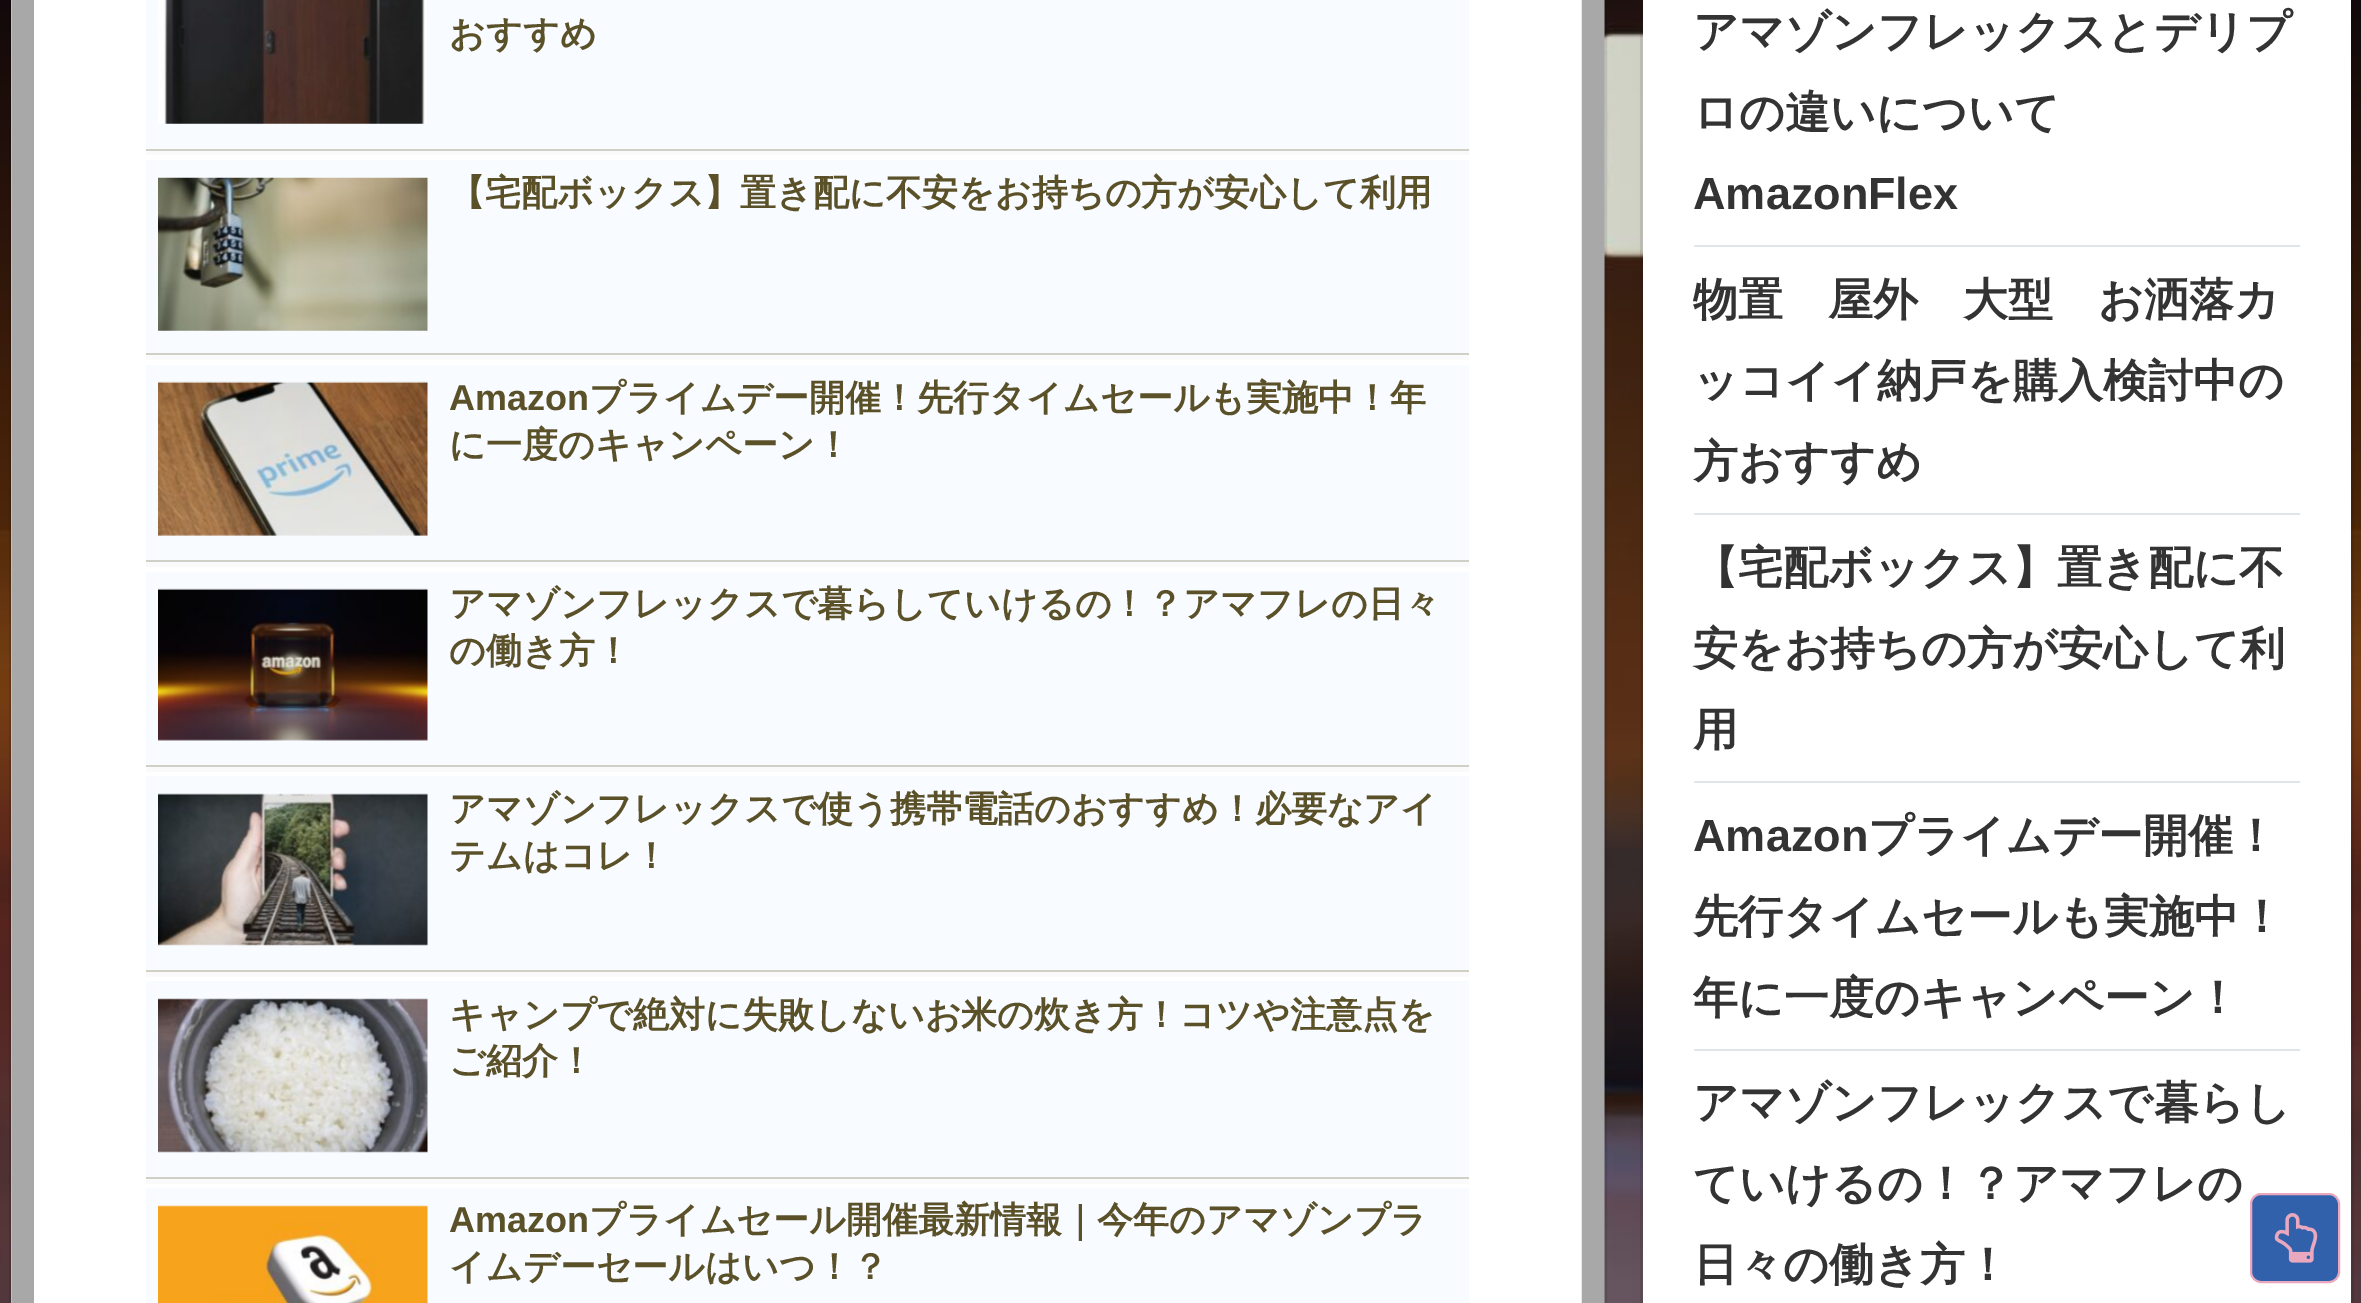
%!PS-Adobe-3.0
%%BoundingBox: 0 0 2361 1303
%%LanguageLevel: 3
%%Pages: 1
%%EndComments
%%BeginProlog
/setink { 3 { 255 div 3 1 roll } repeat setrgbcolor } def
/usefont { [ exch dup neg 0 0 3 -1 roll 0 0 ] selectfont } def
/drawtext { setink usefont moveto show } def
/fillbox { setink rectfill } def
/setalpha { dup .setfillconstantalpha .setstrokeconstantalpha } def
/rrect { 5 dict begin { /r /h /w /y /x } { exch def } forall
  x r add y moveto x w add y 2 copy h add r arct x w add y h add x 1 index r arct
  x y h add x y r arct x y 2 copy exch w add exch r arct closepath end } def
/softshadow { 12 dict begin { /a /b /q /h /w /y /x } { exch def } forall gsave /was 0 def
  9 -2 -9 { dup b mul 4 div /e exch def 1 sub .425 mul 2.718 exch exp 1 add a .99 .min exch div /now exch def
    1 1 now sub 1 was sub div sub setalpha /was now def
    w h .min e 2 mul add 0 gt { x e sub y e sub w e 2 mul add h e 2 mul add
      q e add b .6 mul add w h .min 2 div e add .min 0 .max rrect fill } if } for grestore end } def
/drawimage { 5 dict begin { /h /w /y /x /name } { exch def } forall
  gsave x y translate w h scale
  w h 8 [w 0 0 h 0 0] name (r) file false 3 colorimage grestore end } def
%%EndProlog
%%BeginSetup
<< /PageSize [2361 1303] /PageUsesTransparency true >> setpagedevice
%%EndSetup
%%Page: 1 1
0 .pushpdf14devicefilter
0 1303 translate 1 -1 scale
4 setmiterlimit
0 0 2361 1303 255 255 255 fillbox
(assets/img1.rgb) 0 0 2361 1303 drawimage
0.08 setalpha
0 0 0 setink
2 setlinewidth
10 -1 1596 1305 rectstroke
1 setalpha
11 -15 1593 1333 9 2 0.16 softshadow
11 0 1571 1303 255 255 255 fillbox
168 168 168 setink
22.5 setlinewidth
22.5 -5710.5 moveto 1593 -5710.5 lineto 1593 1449 lineto 22.5 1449 lineto closepath stroke
251 250 250 setink
146 -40 moveto 146 155 lineto 1469 155 lineto 1469 151 lineto 146 151 lineto closepath fill
146 0 1323 149 248 251 255 fillbox
146 149 1323 2 208 208 199 fillbox
(assets/img2.rgb) 158 0 269 124 drawimage
(おすすめ) 449 46 /WenQuanYiZenHei-Bold 36 90 81 41 drawtext
251 250 250 setink
146 164 moveto 146 360 lineto 1469 360 lineto 1469 356 lineto 146 356 lineto closepath fill
146 160 1323 196 248 251 255 fillbox
146 353 1323 2 208 208 199 fillbox
(assets/img3.rgb) 158 177 270 154 drawimage
(【宅配ボックス】置き配に不安をお持ちの方が安心して利用) 449 205 /WenQuanYiZenHei-Bold 36 90 81 41 drawtext
251 250 250 setink
146 369 moveto 146 567 lineto 1469 567 lineto 1469 562 lineto 146 562 lineto closepath fill
146 365 1323 198 248 251 255 fillbox
146 560 1323 2 208 208 199 fillbox
(assets/img4.rgb) 158 381 270 155 drawimage
(Amazon) 449 410 /LiberationSans-Bold 36 90 81 41 drawtext
(プライムデー開催！先行タイムセールも実施中！年) 589 410 /WenQuanYiZenHei-Bold 36 90 81 41 drawtext
(に一度のキャンペーン！) 449 457 /WenQuanYiZenHei-Bold 36 90 81 41 drawtext
251 250 250 setink
146 576 moveto 146 772 lineto 1469 772 lineto 1469 767 lineto 146 767 lineto closepath fill
146 572 1323 193 248 251 255 fillbox
146 765 1323 2 208 208 199 fillbox
(assets/img5.rgb) 158 588 270 153 drawimage
(アマゾンフレックスで暮らしていけるの！？アマフレの日々) 449 616 /WenQuanYiZenHei-Bold 36 90 81 41 drawtext
(の働き方！) 449 663 /WenQuanYiZenHei-Bold 36 90 81 41 drawtext
251 250 250 setink
146 781 moveto 146 977 lineto 1469 977 lineto 1469 972 lineto 146 972 lineto closepath fill
146 776 1323 194 248 251 255 fillbox
146 970 1323 2 208 208 199 fillbox
(assets/img6.rgb) 158 793 270 153 drawimage
(アマゾンフレックスで使う携帯電話のおすすめ！必要なアイ) 449 821 /WenQuanYiZenHei-Bold 36 90 81 41 drawtext
(テムはコレ！) 449 868 /WenQuanYiZenHei-Bold 36 90 81 41 drawtext
251 250 250 setink
146 986 moveto 146 1184 lineto 1469 1184 lineto 1469 1179 lineto 146 1179 lineto closepath fill
146 981 1323 196 248 251 255 fillbox
146 1177 1323 2 208 208 199 fillbox
(assets/img7.rgb) 158 998 270 155 drawimage
(キャンプで絶対に失敗しないお米の炊き方！コツや注意点を) 449 1027 /WenQuanYiZenHei-Bold 36 90 81 41 drawtext
(ご紹介！) 449 1073 /WenQuanYiZenHei-Bold 36 90 81 41 drawtext
146 1188 1323 115 248 251 255 fillbox
(assets/img8.rgb) 158 1205 270 98 drawimage
(Amazon) 449 1232 /LiberationSans-Bold 36 90 81 41 drawtext
(プライムセール開催最新情報｜今年のアマゾンプラ) 589 1232 /WenQuanYiZenHei-Bold 36 90 81 41 drawtext
(イムデーセールはいつ！？) 449 1279 /WenQuanYiZenHei-Bold 36 90 81 41 drawtext
0.08 setalpha
0 0 0 setink
2 setlinewidth
1641 -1 712 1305 rectstroke
1 setalpha
1643 -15 708 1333 9 2 0.16 softshadow
1643 0 708 1303 255 255 255 fillbox
1694 245 606 2 224 229 236 fillbox
(アマゾンフレックスとデリプ) 1693 47 /WenQuanYiZenHei-Bold 45 51 51 51 drawtext
(ロの違いについて) 1693 128 /WenQuanYiZenHei-Bold 45 51 51 51 drawtext
(AmazonFlex) 1693 209 /LiberationSans-Bold 45 51 51 51 drawtext
1694 513 606 2 224 229 236 fillbox
(物置　屋外　大型　お洒落カ) 1693 315 /WenQuanYiZenHei-Bold 45 51 51 51 drawtext
(ッコイイ納戸を購入検討中の) 1693 396 /WenQuanYiZenHei-Bold 45 51 51 51 drawtext
(方おすすめ) 1693 477 /WenQuanYiZenHei-Bold 45 51 51 51 drawtext
1694 781 606 2 224 229 236 fillbox
(【宅配ボックス】置き配に不) 1693 583 /WenQuanYiZenHei-Bold 45 51 51 51 drawtext
(安をお持ちの方が安心して利) 1693 664 /WenQuanYiZenHei-Bold 45 51 51 51 drawtext
(用) 1693 745 /WenQuanYiZenHei-Bold 45 51 51 51 drawtext
1694 1049 606 2 224 229 236 fillbox
(Amazon) 1693 851 /LiberationSans-Bold 45 51 51 51 drawtext
(プライムデー開催！) 1868 851 /WenQuanYiZenHei-Bold 45 51 51 51 drawtext
(先行タイムセールも実施中！) 1693 932 /WenQuanYiZenHei-Bold 45 51 51 51 drawtext
(年に一度のキャンペーン！) 1693 1013 /WenQuanYiZenHei-Bold 45 51 51 51 drawtext
(アマゾンフレックスで暮らし) 1693 1118 /WenQuanYiZenHei-Bold 45 51 51 51 drawtext
(ていけるの！？アマフレの) 1693 1199 /WenQuanYiZenHei-Bold 45 51 51 51 drawtext
(日々の働き方！) 1693 1280 /WenQuanYiZenHei-Bold 45 51 51 51 drawtext
50 97 171 setink
2251 1194 88 88 10 rrect gsave fill grestore
234 168 191 setink
stroke
(assets/img9.rgb) 2274 1213 44 50 drawimage
.poppdf14devicefilter showpage
%%EOF
